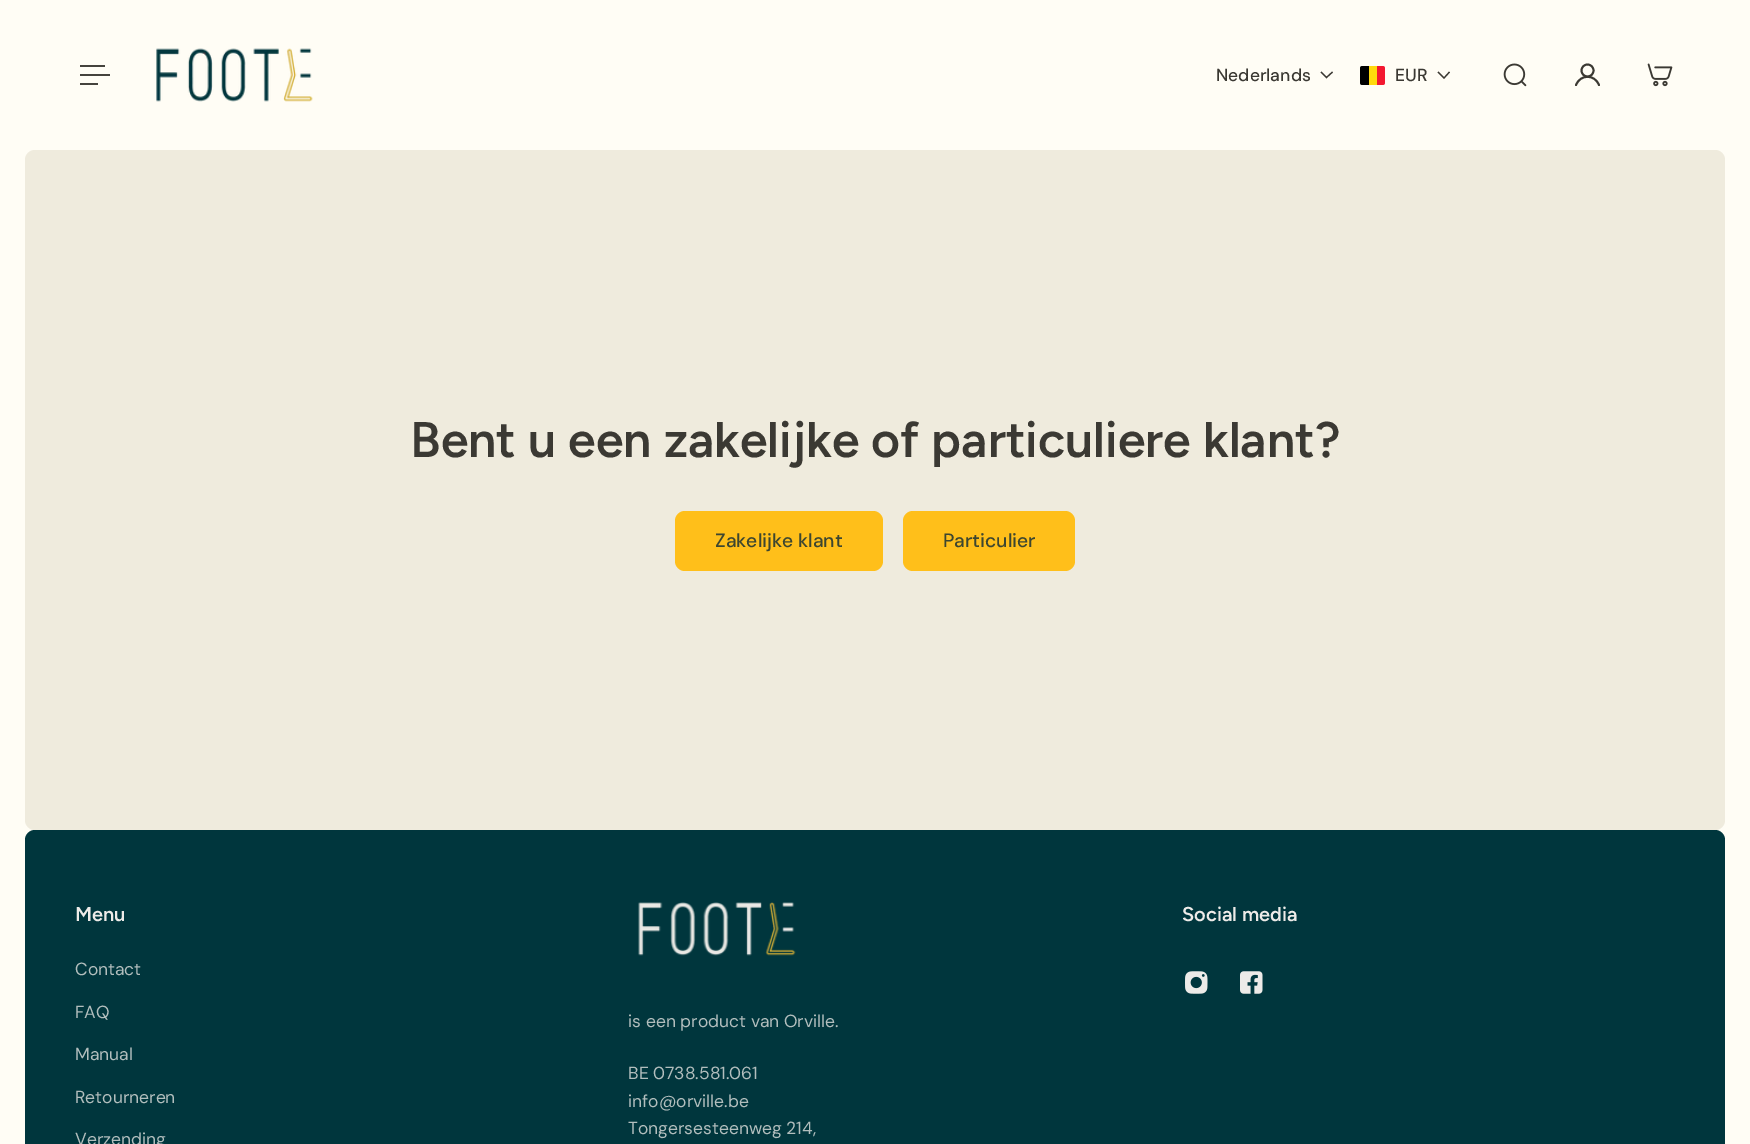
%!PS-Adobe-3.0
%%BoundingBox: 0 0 1750 1144
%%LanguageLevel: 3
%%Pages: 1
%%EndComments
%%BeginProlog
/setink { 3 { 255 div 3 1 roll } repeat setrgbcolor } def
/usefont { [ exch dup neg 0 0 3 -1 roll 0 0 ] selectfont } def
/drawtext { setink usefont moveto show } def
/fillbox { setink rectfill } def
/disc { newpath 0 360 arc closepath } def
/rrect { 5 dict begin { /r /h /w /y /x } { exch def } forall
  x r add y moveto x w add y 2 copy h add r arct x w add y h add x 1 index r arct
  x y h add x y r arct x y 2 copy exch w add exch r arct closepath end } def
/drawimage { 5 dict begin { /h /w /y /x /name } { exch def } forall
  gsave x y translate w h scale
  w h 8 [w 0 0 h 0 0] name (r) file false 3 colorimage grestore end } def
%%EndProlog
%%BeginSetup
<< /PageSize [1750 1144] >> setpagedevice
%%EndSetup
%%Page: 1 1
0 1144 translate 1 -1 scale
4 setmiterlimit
0 0 1750 1144 255 253 245 fillbox
80 65 25 2 69 67 61 fillbox
80 74 30 2 69 67 61 fillbox
80 83 18 2 69 67 61 fillbox
(assets/img1.rgb) 156 48 157 54 drawimage
(Nederlands) 1216 81 /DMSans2-Medium 17.5 59 57 51 drawtext
1.2 setlinewidth
1332.5 72 moveto 1326.5 77.5 lineto 1321 72 lineto stroke
0 0 0 setink
1362.5 66 moveto 1369 66 lineto 1369 85 lineto 1362.5 85 lineto 1361 85 1360 84 1360 82.5 curveto 1360 68.5 lineto 1360 67 1361 66 1362.5 66 curveto closepath fill
1369 66 8 19 255 217 12 fillbox
243 24 48 setink
1377 66 moveto 1382.5 66 lineto 1384 66 1385 67 1385 68.5 curveto 1385 82.5 lineto 1385 84 1384 85 1382.5 85 curveto 1377 85 lineto closepath fill
(EUR) 1395 81 /DMSans2-Medium 17.5 59 57 51 drawtext
1449.5 72 moveto 1444 78 lineto 1438 72 lineto stroke
(assets/img2.rgb) 1503 63 24 24 drawimage
1.9 setlinewidth
1587.5 70.5 6 disc stroke
1 setlinecap
1 setlinejoin
1576 85 moveto 1580.5 74 1594.5 74 1599 85 curveto stroke
(assets/img3.rgb) 1647 63 26 24 drawimage
239 235 221 setink
25 150 1700 680 10 rrect fill
(Bent u een zakelijke of particuliere klant?) 410 457 /Figtree-SemiBold 50 59 57 51 drawtext
255 191 26 setink
675 511 208 60 10 rrect fill
(Zakelijke klant) 715 547 /DMSans-Medium 19.25 61 70 48 drawtext
255 191 26 setink
903 511 172 60 10 rrect fill
(Particulier) 943 547 /DMSans-Medium 19.25 61 70 48 drawtext
0 54 61 setink
25 830 1700 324 10 rrect fill
(Menu) 75 921 /Figtree-SemiBold 20 237 235 232 drawtext
(Contact) 75 975 /DMSans-Regular 17.5 178 190 189 drawtext
(FAQ) 75 1018 /DMSans-Regular 17.5 178 190 189 drawtext
(Manual) 75 1060 /DMSans-Regular 17.5 178 190 189 drawtext
(Retourneren) 75 1103 /DMSans-Regular 17.5 178 190 189 drawtext
(Verzending) 75 1145 /DMSans-Regular 17.5 178 190 189 drawtext
(assets/img4.rgb) 638 902 158 54 drawimage
(is een product van Orville.) 628 1027 /DMSans-Regular 17.5 178 190 189 drawtext
(BE 0738.581.061) 628 1079 /DMSans-Regular 17.5 178 190 189 drawtext
(info@orville.be) 628 1107 /DMSans-Regular 17.5 178 190 189 drawtext
(Tongersesteenweg 214,) 628 1134 /DMSans-Regular 17.5 178 190 189 drawtext
(Social media) 1182 921 /Figtree-SemiBold 20 237 235 232 drawtext
(assets/img5.rgb) 1185 971 23 23 drawimage
(assets/img6.rgb) 1240 971 23 23 drawimage
showpage
%%EOF
